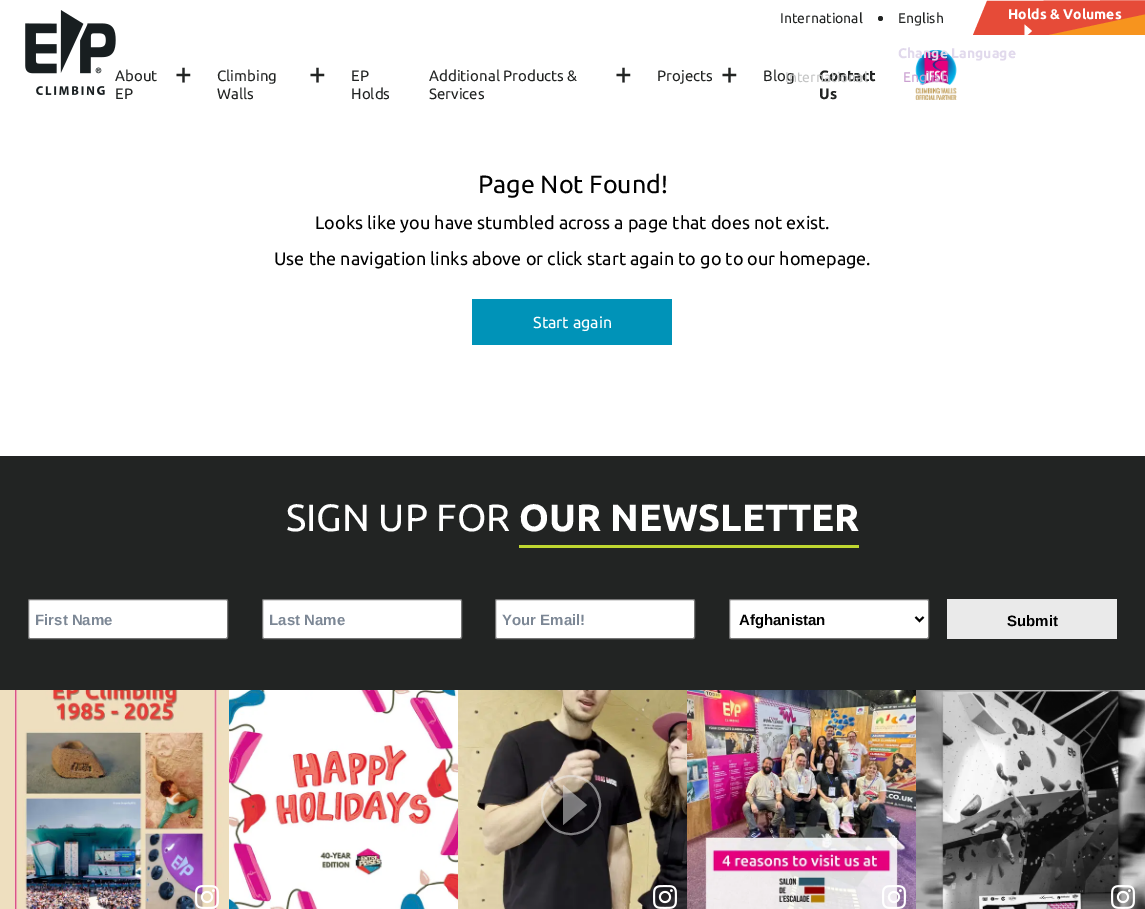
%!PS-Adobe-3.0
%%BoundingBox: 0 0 1145 909
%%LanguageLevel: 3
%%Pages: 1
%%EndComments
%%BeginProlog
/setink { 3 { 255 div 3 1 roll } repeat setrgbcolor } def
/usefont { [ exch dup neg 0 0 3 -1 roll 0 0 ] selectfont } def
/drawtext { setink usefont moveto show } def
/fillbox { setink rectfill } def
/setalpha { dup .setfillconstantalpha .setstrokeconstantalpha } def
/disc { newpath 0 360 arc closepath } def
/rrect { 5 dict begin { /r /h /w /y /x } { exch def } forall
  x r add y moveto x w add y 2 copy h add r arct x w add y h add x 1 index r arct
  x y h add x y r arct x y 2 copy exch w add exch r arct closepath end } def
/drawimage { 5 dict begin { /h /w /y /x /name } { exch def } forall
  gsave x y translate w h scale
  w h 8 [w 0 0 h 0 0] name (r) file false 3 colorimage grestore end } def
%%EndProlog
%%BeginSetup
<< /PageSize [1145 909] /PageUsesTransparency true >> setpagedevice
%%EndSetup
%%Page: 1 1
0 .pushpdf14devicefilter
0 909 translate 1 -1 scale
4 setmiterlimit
0 0 1145 909 255 255 255 fillbox
(assets/img1.rgb) 25 10 91 85 drawimage
(About) 115 81 /Ubuntu-Regular 15 34 36 35 drawtext
(+) 175 84 /Ubuntu-Regular 30 34 36 35 drawtext
(EP) 115 99 /Ubuntu-Regular 15 34 36 35 drawtext
(Climbing) 217 81 /Ubuntu-Regular 15 34 36 35 drawtext
(+) 309 84 /Ubuntu-Regular 30 34 36 35 drawtext
(Walls) 217 99 /Ubuntu-Regular 15 34 36 35 drawtext
(EP) 351 81 /Ubuntu-Regular 15 34 36 35 drawtext
(Holds) 351 99 /Ubuntu-Regular 15 34 36 35 drawtext
(Additional Products &) 429 81 /Ubuntu-Regular 15 34 36 35 drawtext
(+) 615 84 /Ubuntu-Regular 30 34 36 35 drawtext
(Services) 429 99 /Ubuntu-Regular 15 34 36 35 drawtext
(Projects) 657 81 /Ubuntu-Regular 15 34 36 35 drawtext
(+) 721 84 /Ubuntu-Regular 30 34 36 35 drawtext
(Blog) 763 81 /Ubuntu-Regular 15 34 36 35 drawtext
(Contact) 819 81 /Ubuntu-Bold 15 34 36 35 drawtext
(Us) 819 99 /Ubuntu-Bold 15 34 36 35 drawtext
(International) 780 23 /Ubuntu-Regular 14 34 36 35 drawtext
880.5 18.5 2.5 disc fill
(International) 785 82 /Ubuntu-Regular 14 196 197 197 drawtext
(English) 898 23 /Ubuntu-Regular 14 34 36 35 drawtext
(assets/img2.rgb) 915 50 42 50 drawimage
(Change Language) 898 58 /Ubuntu-Bold 14 225 217 236 drawtext
(English) 903 82 /Ubuntu-Regular 14 202 160 208 drawtext
230 75 56 setink
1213 35 moveto 973 35 lineto 987 1 lineto 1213 0 lineto closepath fill
247 148 30 setink
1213 0 moveto 1049 35 lineto 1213 35 lineto closepath fill
(Holds & Volumes) 1008 19 /Ubuntu-Bold 14 255 255 255 drawtext
1024.5 24.5 moveto 1032 31 lineto 1024.5 37.5 lineto closepath fill
(Page Not Found!) 478 193 /Ubuntu-Regular 25 0 0 0 drawtext
(Looks like you have stumbled across a page that does not exist.) 315 229 /Ubuntu-Regular 18 0 0 0 drawtext
(Use the navigation links above or click start again to go to our homepage.) 274 265 /Ubuntu-Regular 18 0 0 0 drawtext
472 299 200 46 0 147 184 fillbox
(Start again) 533 328 /Ubuntu-Regular 16 255 255 255 drawtext
0 456 1145 234 34 36 35 fillbox
(SIGN UP FOR) 286 531 /Ubuntu-Regular 38 255 255 255 drawtext
519 545 340 3 191 215 48 fillbox
(OUR NEWSLETTER) 519 531 /Ubuntu-Bold 38 255 255 255 drawtext
28.5 599.5 199 39 1.5 rrect gsave fill grestore
118 118 118 setink
stroke
(First Name) 35 625 /LiberationSans-Bold 15 124 135 149 drawtext
255 255 255 setink
262.5 599.5 199 39 1.5 rrect gsave fill grestore
118 118 118 setink
stroke
(Last Name) 269 625 /LiberationSans-Bold 15 124 135 149 drawtext
255 255 255 setink
495.5 599.5 199 39 1.5 rrect gsave fill grestore
118 118 118 setink
stroke
(Your Email!) 502 625 /LiberationSans-Bold 15 124 135 149 drawtext
255 255 255 setink
729.5 599.5 199 39 1.5 rrect gsave fill grestore
118 118 118 setink
stroke
0 0 0 setink
2 setlinewidth
915.5 617 moveto 919.5 621 lineto 923.5 617 lineto stroke
(Afghanistan) 739 625 /LiberationSans-Bold 15 0 0 0 drawtext
947 599 170 40 234 234 234 fillbox
(Submit) 1007 626 /LiberationSans-Bold 15 0 0 0 drawtext
(assets/img3.rgb) 0 690 229 219 drawimage
(assets/img4.rgb) 195 885 24 24 drawimage
(assets/img5.rgb) 229 690 229 219 drawimage
(assets/img6.rgb) 424 885 24 8 drawimage
(assets/img7.rgb) 458 690 229 219 drawimage
0.5 setalpha
239 239 239 setink
563 825 moveto 563 785 lineto 587 805 lineto closepath fill
571 805 29 disc stroke
1 setalpha
(assets/img8.rgb) 653 885 24 24 drawimage
(assets/img9.rgb) 687 690 229 219 drawimage
(assets/img10.rgb) 882 885 24 24 drawimage
(assets/img11.rgb) 916 690 229 219 drawimage
(assets/img12.rgb) 1111 885 24 24 drawimage
.poppdf14devicefilter showpage
%%EOF
